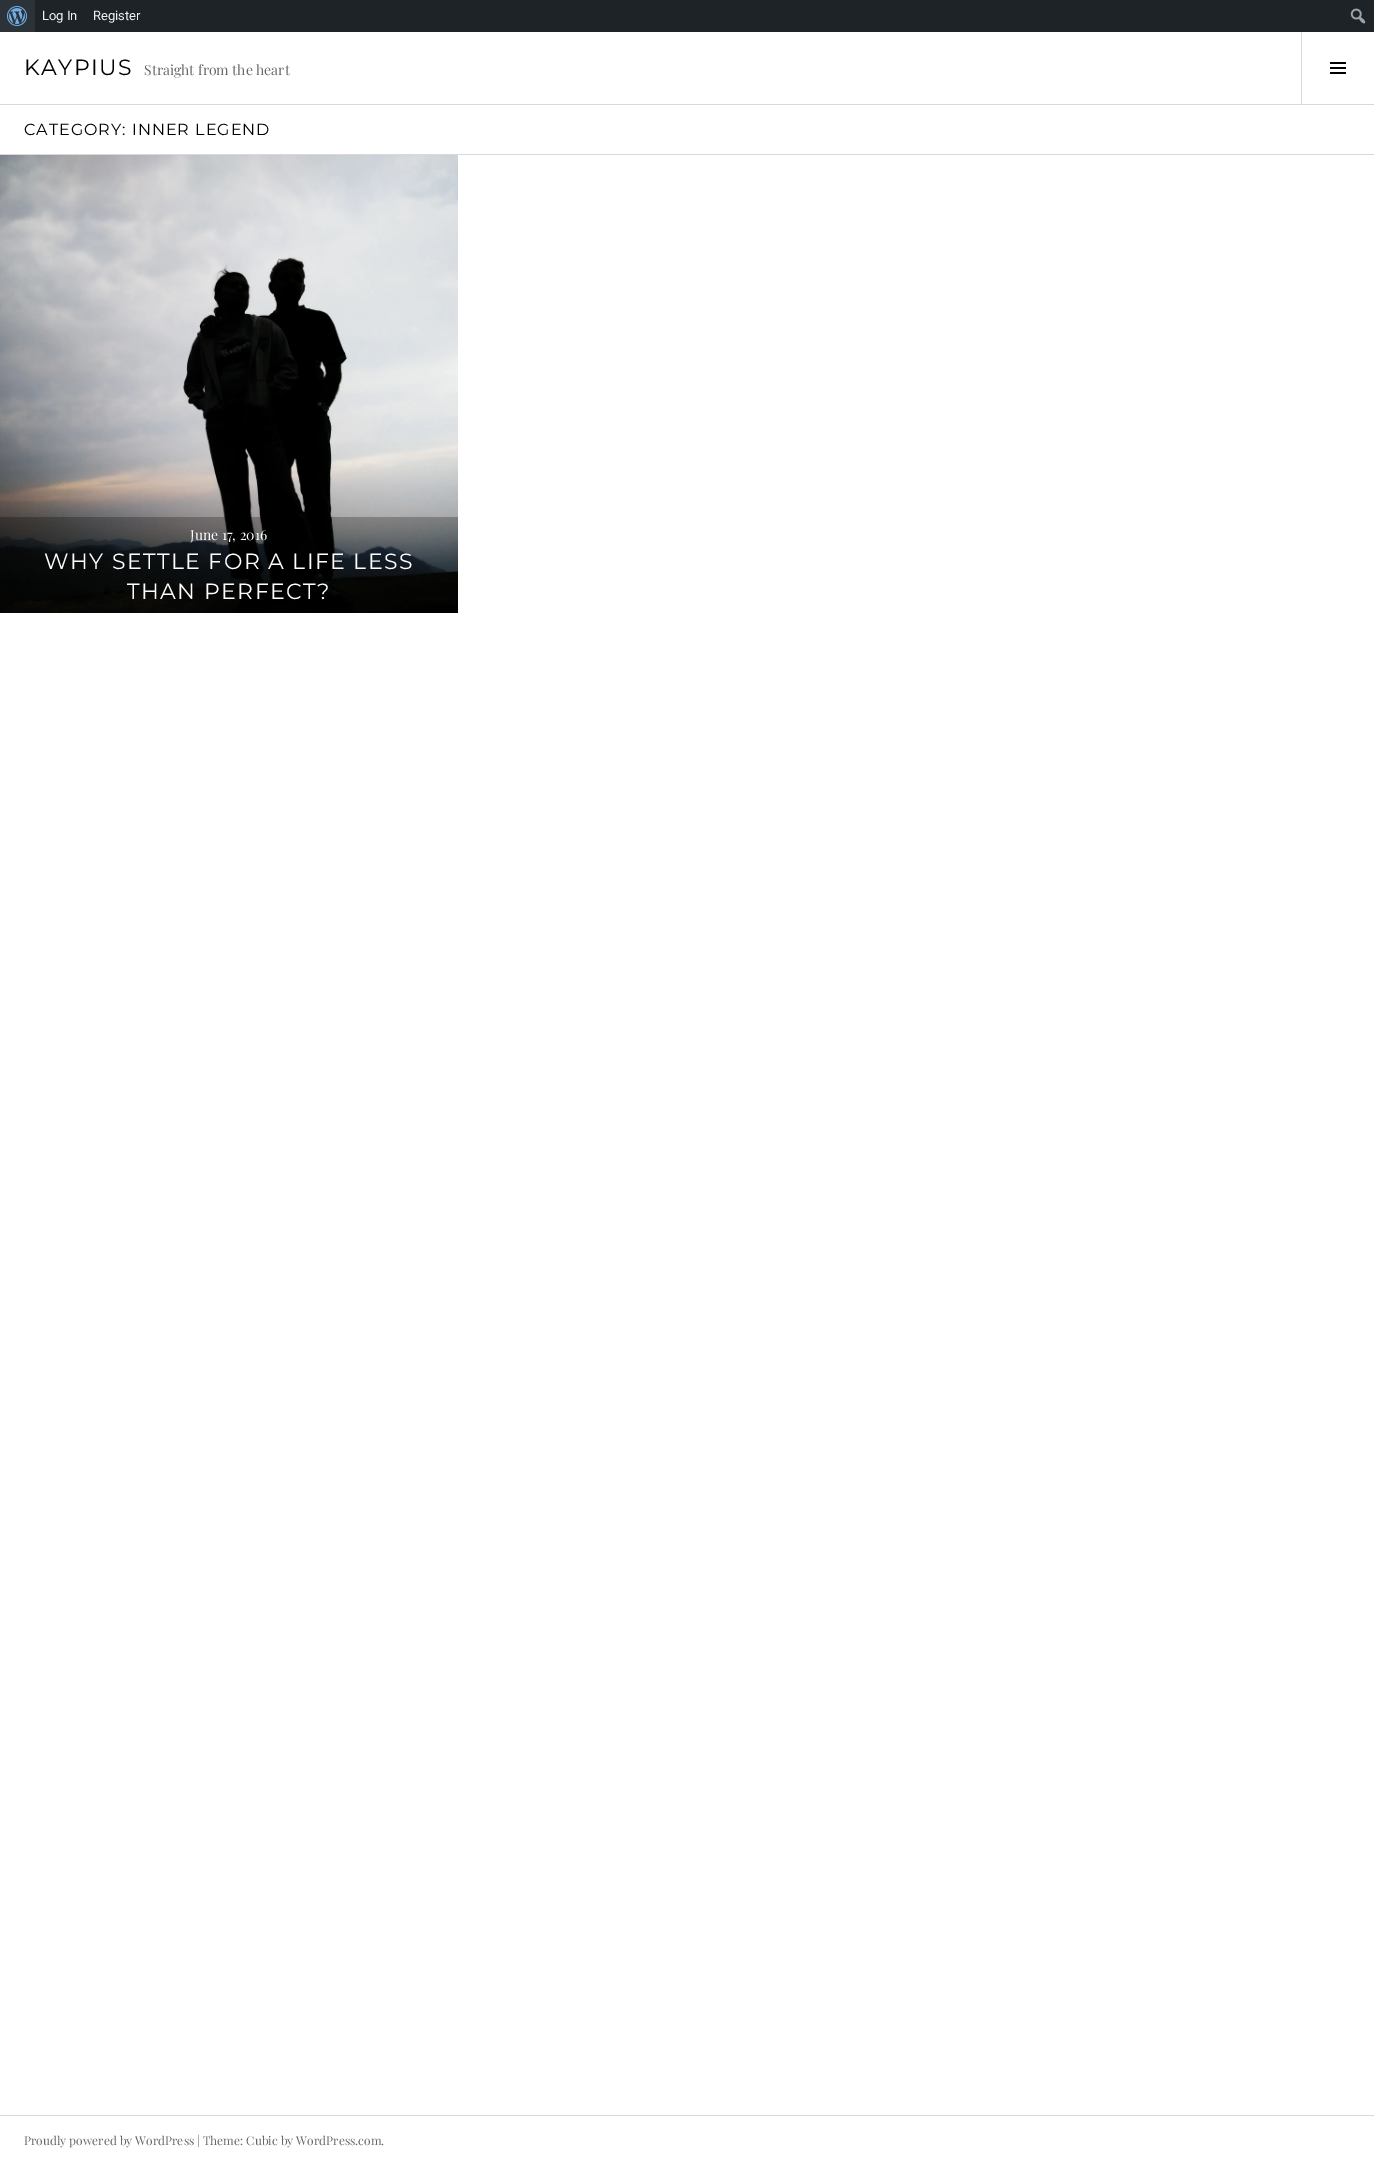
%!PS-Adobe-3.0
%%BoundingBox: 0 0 1374 2164
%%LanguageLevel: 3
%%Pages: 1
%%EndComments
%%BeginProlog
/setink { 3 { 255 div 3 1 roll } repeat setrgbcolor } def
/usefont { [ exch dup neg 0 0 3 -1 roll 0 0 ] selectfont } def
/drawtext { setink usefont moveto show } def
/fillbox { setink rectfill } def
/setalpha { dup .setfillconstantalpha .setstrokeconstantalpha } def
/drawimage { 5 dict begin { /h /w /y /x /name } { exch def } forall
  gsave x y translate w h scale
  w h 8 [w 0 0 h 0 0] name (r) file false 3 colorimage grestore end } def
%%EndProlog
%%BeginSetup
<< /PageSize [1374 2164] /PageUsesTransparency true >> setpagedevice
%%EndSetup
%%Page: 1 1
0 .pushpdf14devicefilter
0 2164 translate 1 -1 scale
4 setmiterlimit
0 0 1374 2164 255 255 255 fillbox
35 0 1339 32 29 35 39 fillbox
0 0 35 32 44 51 56 fillbox
(assets/img1.rgb) 7 6 20 20 drawimage
(Log In) 42 20 /Roboto-Regular 13 240 240 241 drawtext
(Register) 93 20 /Roboto-Regular 13 240 240 241 drawtext
(assets/img2.rgb) 1350 8 16 16 drawimage
0 104 1374 1 217 217 217 fillbox
/Montserrat-Regular 22 usefont
0 0 0 setink
24 75 moveto 1.4 0 (KAYPIUS) ashow
(Straight from the heart) 144 75 /PlayfairDisplay-Regular 14 102 102 102 drawtext
1301 32 1 72 217 217 217 fillbox
(assets/img3.rgb) 1330 62 16 12 drawimage
0 154 1374 1 217 217 217 fillbox
/Montserrat-Regular 16 usefont
0 0 0 setink
24 135 moveto 1 0 (CATEGORY: INNER LEGEND) ashow
(assets/img4.rgb) 0 155 458 458 drawimage
0.25 setalpha
0 517 458 96 0 0 0 fillbox
1 setalpha
(June 17, 2016) 190 540 /PlayfairDisplay-Regular 14 255 255 255 drawtext
/Montserrat-Regular 22 usefont
44 569 moveto 1.4 0 (WHY SETTLE FOR A LIFE LESS) ashow
127 599 moveto 1.4 0 (THAN PERFECT?) ashow
0 2115 1374 1 217 217 217 fillbox
(Proudly powered by WordPress | Theme: Cubic by WordPress.com.) 24 2145 /PlayfairDisplay-Regular 12 102 102 102 drawtext
.poppdf14devicefilter showpage
%%EOF
